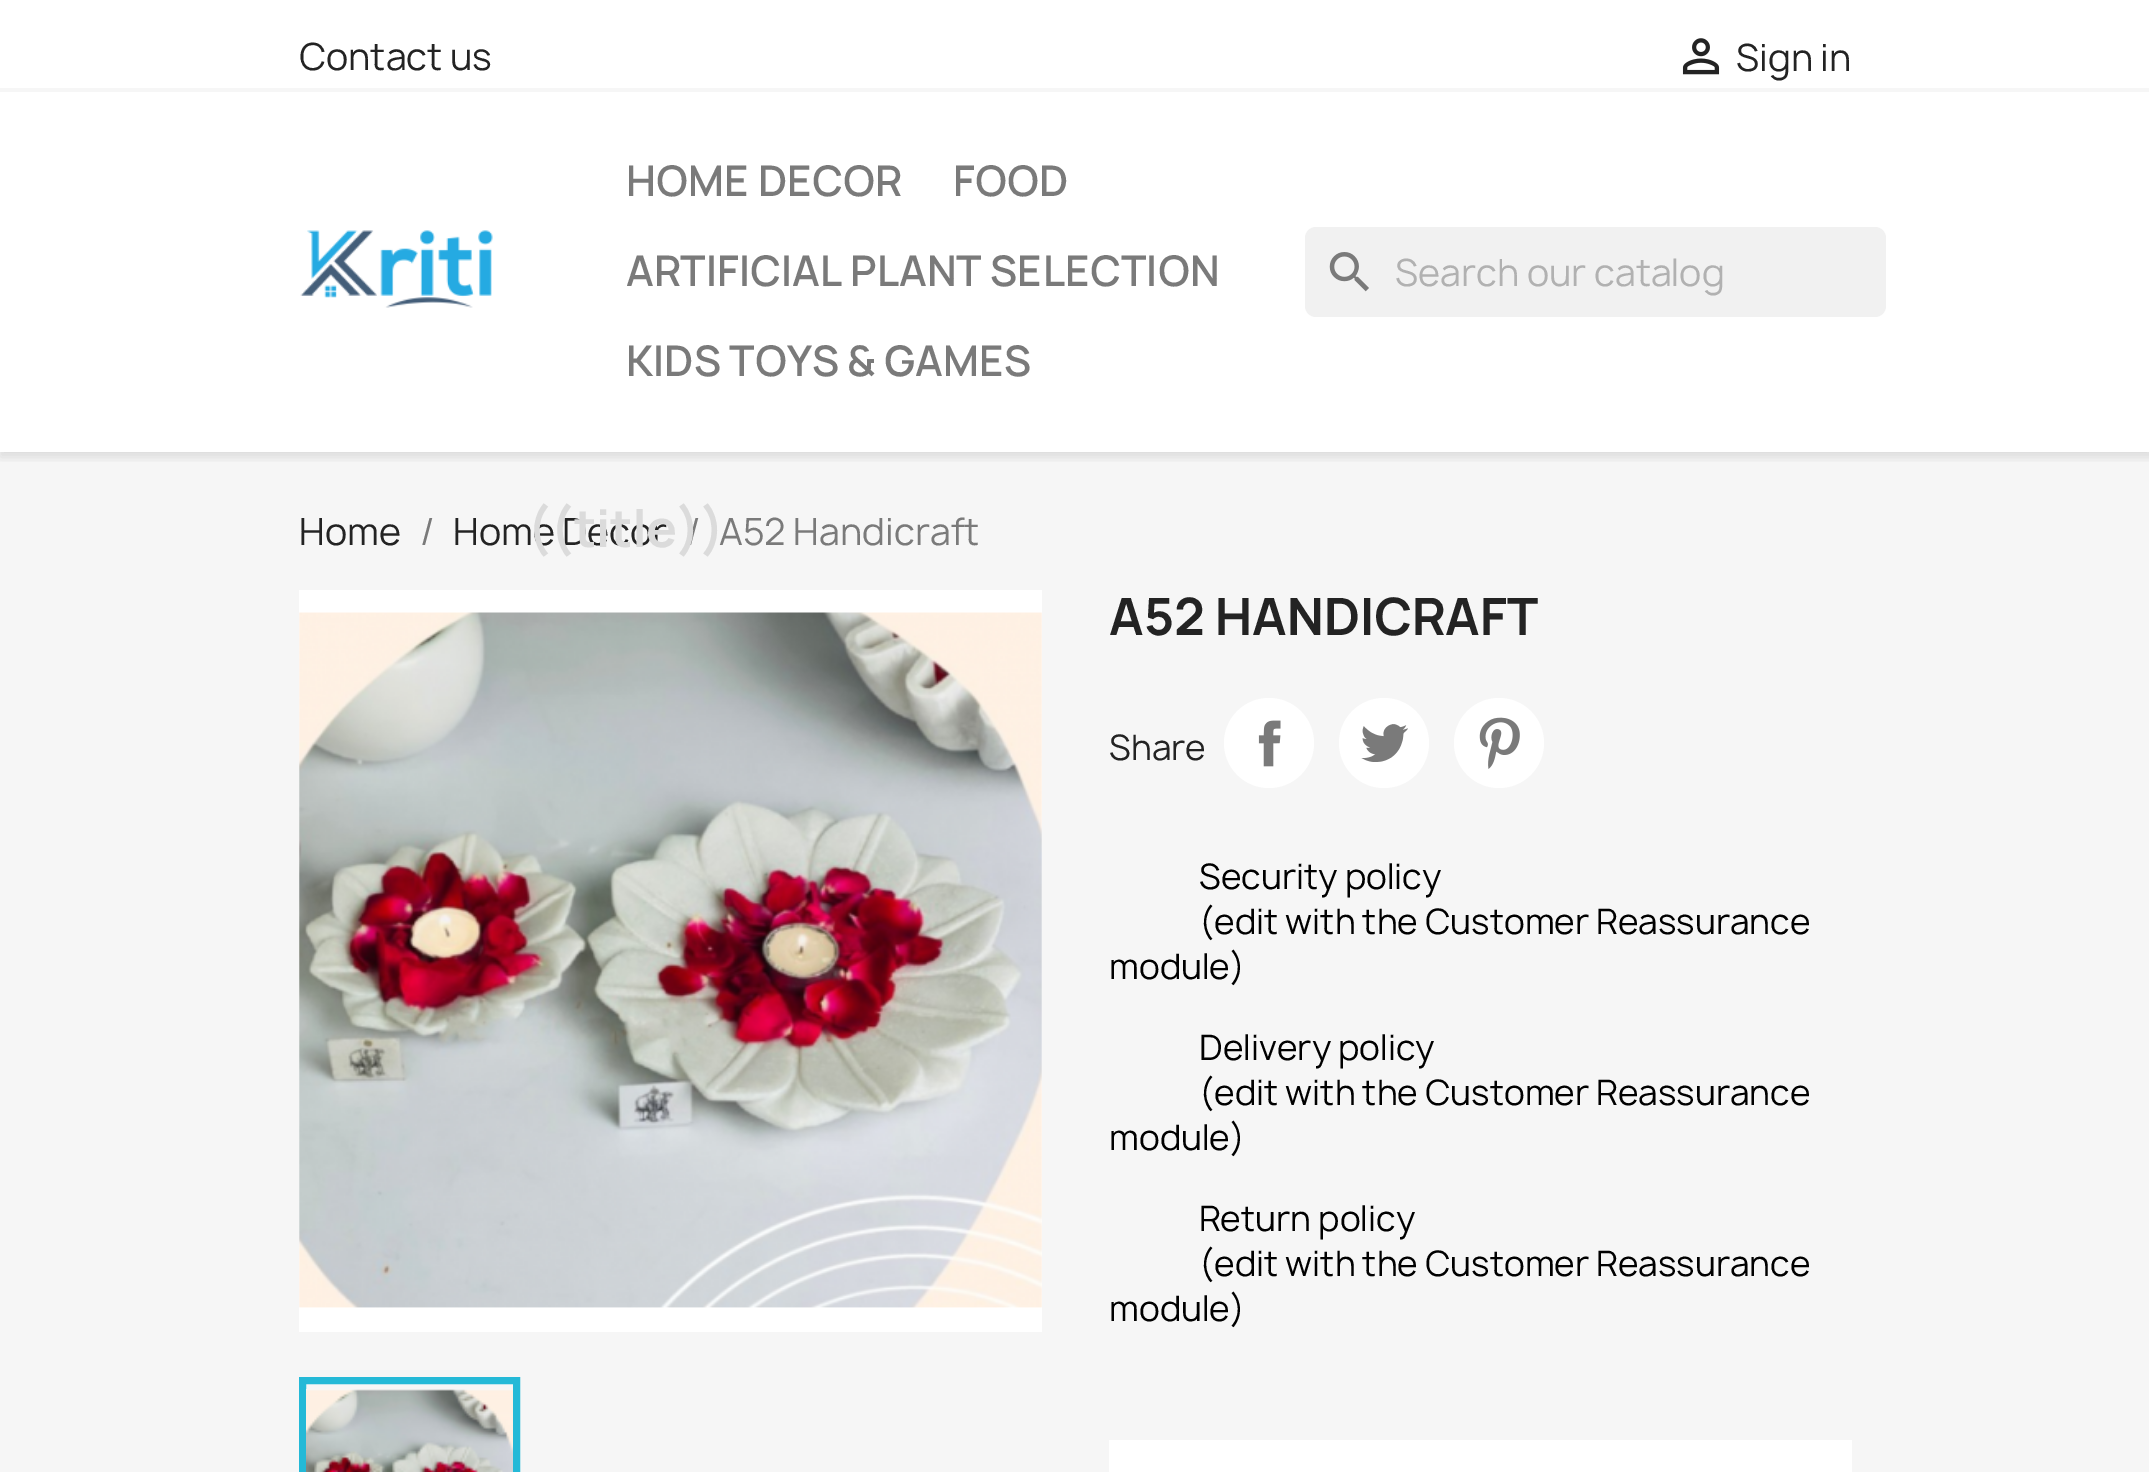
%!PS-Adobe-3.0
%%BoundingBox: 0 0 2149 1472
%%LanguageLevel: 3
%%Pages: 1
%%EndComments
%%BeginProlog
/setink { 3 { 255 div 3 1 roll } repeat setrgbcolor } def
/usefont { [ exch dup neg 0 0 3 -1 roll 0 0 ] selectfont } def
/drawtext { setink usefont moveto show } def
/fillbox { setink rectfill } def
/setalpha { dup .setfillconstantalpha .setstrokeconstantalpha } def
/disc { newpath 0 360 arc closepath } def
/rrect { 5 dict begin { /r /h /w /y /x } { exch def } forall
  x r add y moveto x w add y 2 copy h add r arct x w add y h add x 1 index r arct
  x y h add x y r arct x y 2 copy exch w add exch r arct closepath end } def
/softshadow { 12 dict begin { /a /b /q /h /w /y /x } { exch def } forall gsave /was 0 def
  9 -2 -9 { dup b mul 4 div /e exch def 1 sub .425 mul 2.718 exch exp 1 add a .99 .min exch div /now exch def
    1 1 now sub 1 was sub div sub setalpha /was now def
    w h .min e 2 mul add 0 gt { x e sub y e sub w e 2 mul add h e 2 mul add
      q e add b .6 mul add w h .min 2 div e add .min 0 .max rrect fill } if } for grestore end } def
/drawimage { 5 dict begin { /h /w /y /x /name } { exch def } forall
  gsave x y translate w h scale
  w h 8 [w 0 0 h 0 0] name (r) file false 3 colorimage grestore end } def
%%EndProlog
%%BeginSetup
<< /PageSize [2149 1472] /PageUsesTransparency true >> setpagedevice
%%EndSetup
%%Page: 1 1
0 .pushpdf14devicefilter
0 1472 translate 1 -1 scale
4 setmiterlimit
0 0 2149 1472 255 255 255 fillbox
0 452 2149 1020 246 246 246 fillbox
gsave
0 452 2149 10 rectclip
0 0 0 setink
0 5 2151 452 0 5.5 0.11 softshadow
grestore
0 88 2149 4 246 246 246 fillbox
(Contact us) 299 70 /Manrope-Regular 36 35 35 35 drawtext
(assets/img1.rgb) 1682 38 38 37 drawimage
(Sign in) 1736 71 /Manrope-Regular 36 35 35 35 drawtext
(assets/img2.rgb) 300 230 193 78 drawimage
(HOME DECOR) 626 196 /Manrope-SemiBold 40.5 122 122 122 drawtext
(FOOD) 953 196 /Manrope-SemiBold 40.5 122 122 122 drawtext
(ARTIFICIAL PLANT SELECTION) 626 286 /Manrope-SemiBold 40.5 122 122 122 drawtext
(KIDS TOYS & GAMES) 626 376 /Manrope-SemiBold 40.5 122 122 122 drawtext
241 241 241 setink
1305 227 581 90 11 rrect fill
(assets/img3.rgb) 1329 252 40 40 drawimage
(Search our catalog) 1395 286 /Manrope-Regular 36 177 177 177 drawtext
(Home) 299 545 /Manrope-Regular 36 35 35 35 drawtext
(/) 420 545 /Manrope-Regular 36 122 122 122 drawtext
(Home Decor) 453 545 /Manrope-Regular 36 35 35 35 drawtext
(/) 686 545 /Manrope-Regular 36 122 122 122 drawtext
(A52 Handicraft) 719 545 /Manrope-Regular 36 122 122 122 drawtext
299 590 743 742 255 255 255 fillbox
(assets/img4.rgb) 299 612 743 696 drawimage
36 185 215 setink
7 setlinewidth
302.5 1380.5 214 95 rectstroke
(assets/img5.rgb) 306 1389 207 83 drawimage
(A52 HANDICRAFT) 1109 635 /Manrope-Bold 49.5 35 35 35 drawtext
(Share) 1109 760 /Manrope-Regular 33.75 35 35 35 drawtext
255 255 255 setink
1269 743 45 disc fill
(assets/img6.rgb) 1258 720 23 47 drawimage
1384 743 45 disc fill
(assets/img7.rgb) 1361 724 47 38 drawimage
1499 743 45 disc fill
(assets/img8.rgb) 1479 717 41 52 drawimage
(Security policy) 1199 889 /Manrope-Regular 33.75 0 0 0 drawtext
(\(edit with the Customer Reassurance) 1199 934 /Manrope-Regular 33.75 0 0 0 drawtext
(module\)) 1109 979 /Manrope-Regular 33.75 0 0 0 drawtext
(Delivery policy) 1199 1060 /Manrope-Regular 33.75 0 0 0 drawtext
(\(edit with the Customer Reassurance) 1199 1105 /Manrope-Regular 33.75 0 0 0 drawtext
(module\)) 1109 1150 /Manrope-Regular 33.75 0 0 0 drawtext
(Return policy) 1199 1231 /Manrope-Regular 33.75 0 0 0 drawtext
(\(edit with the Customer Reassurance) 1199 1276 /Manrope-Regular 33.75 0 0 0 drawtext
(module\)) 1109 1321 /Manrope-Regular 33.75 0 0 0 drawtext
1109 1440 743 32 255 255 255 fillbox
(\(\(title\)\)) 527 547 /Manrope-Bold 49.5 219 219 219 drawtext
.poppdf14devicefilter showpage
%%EOF
